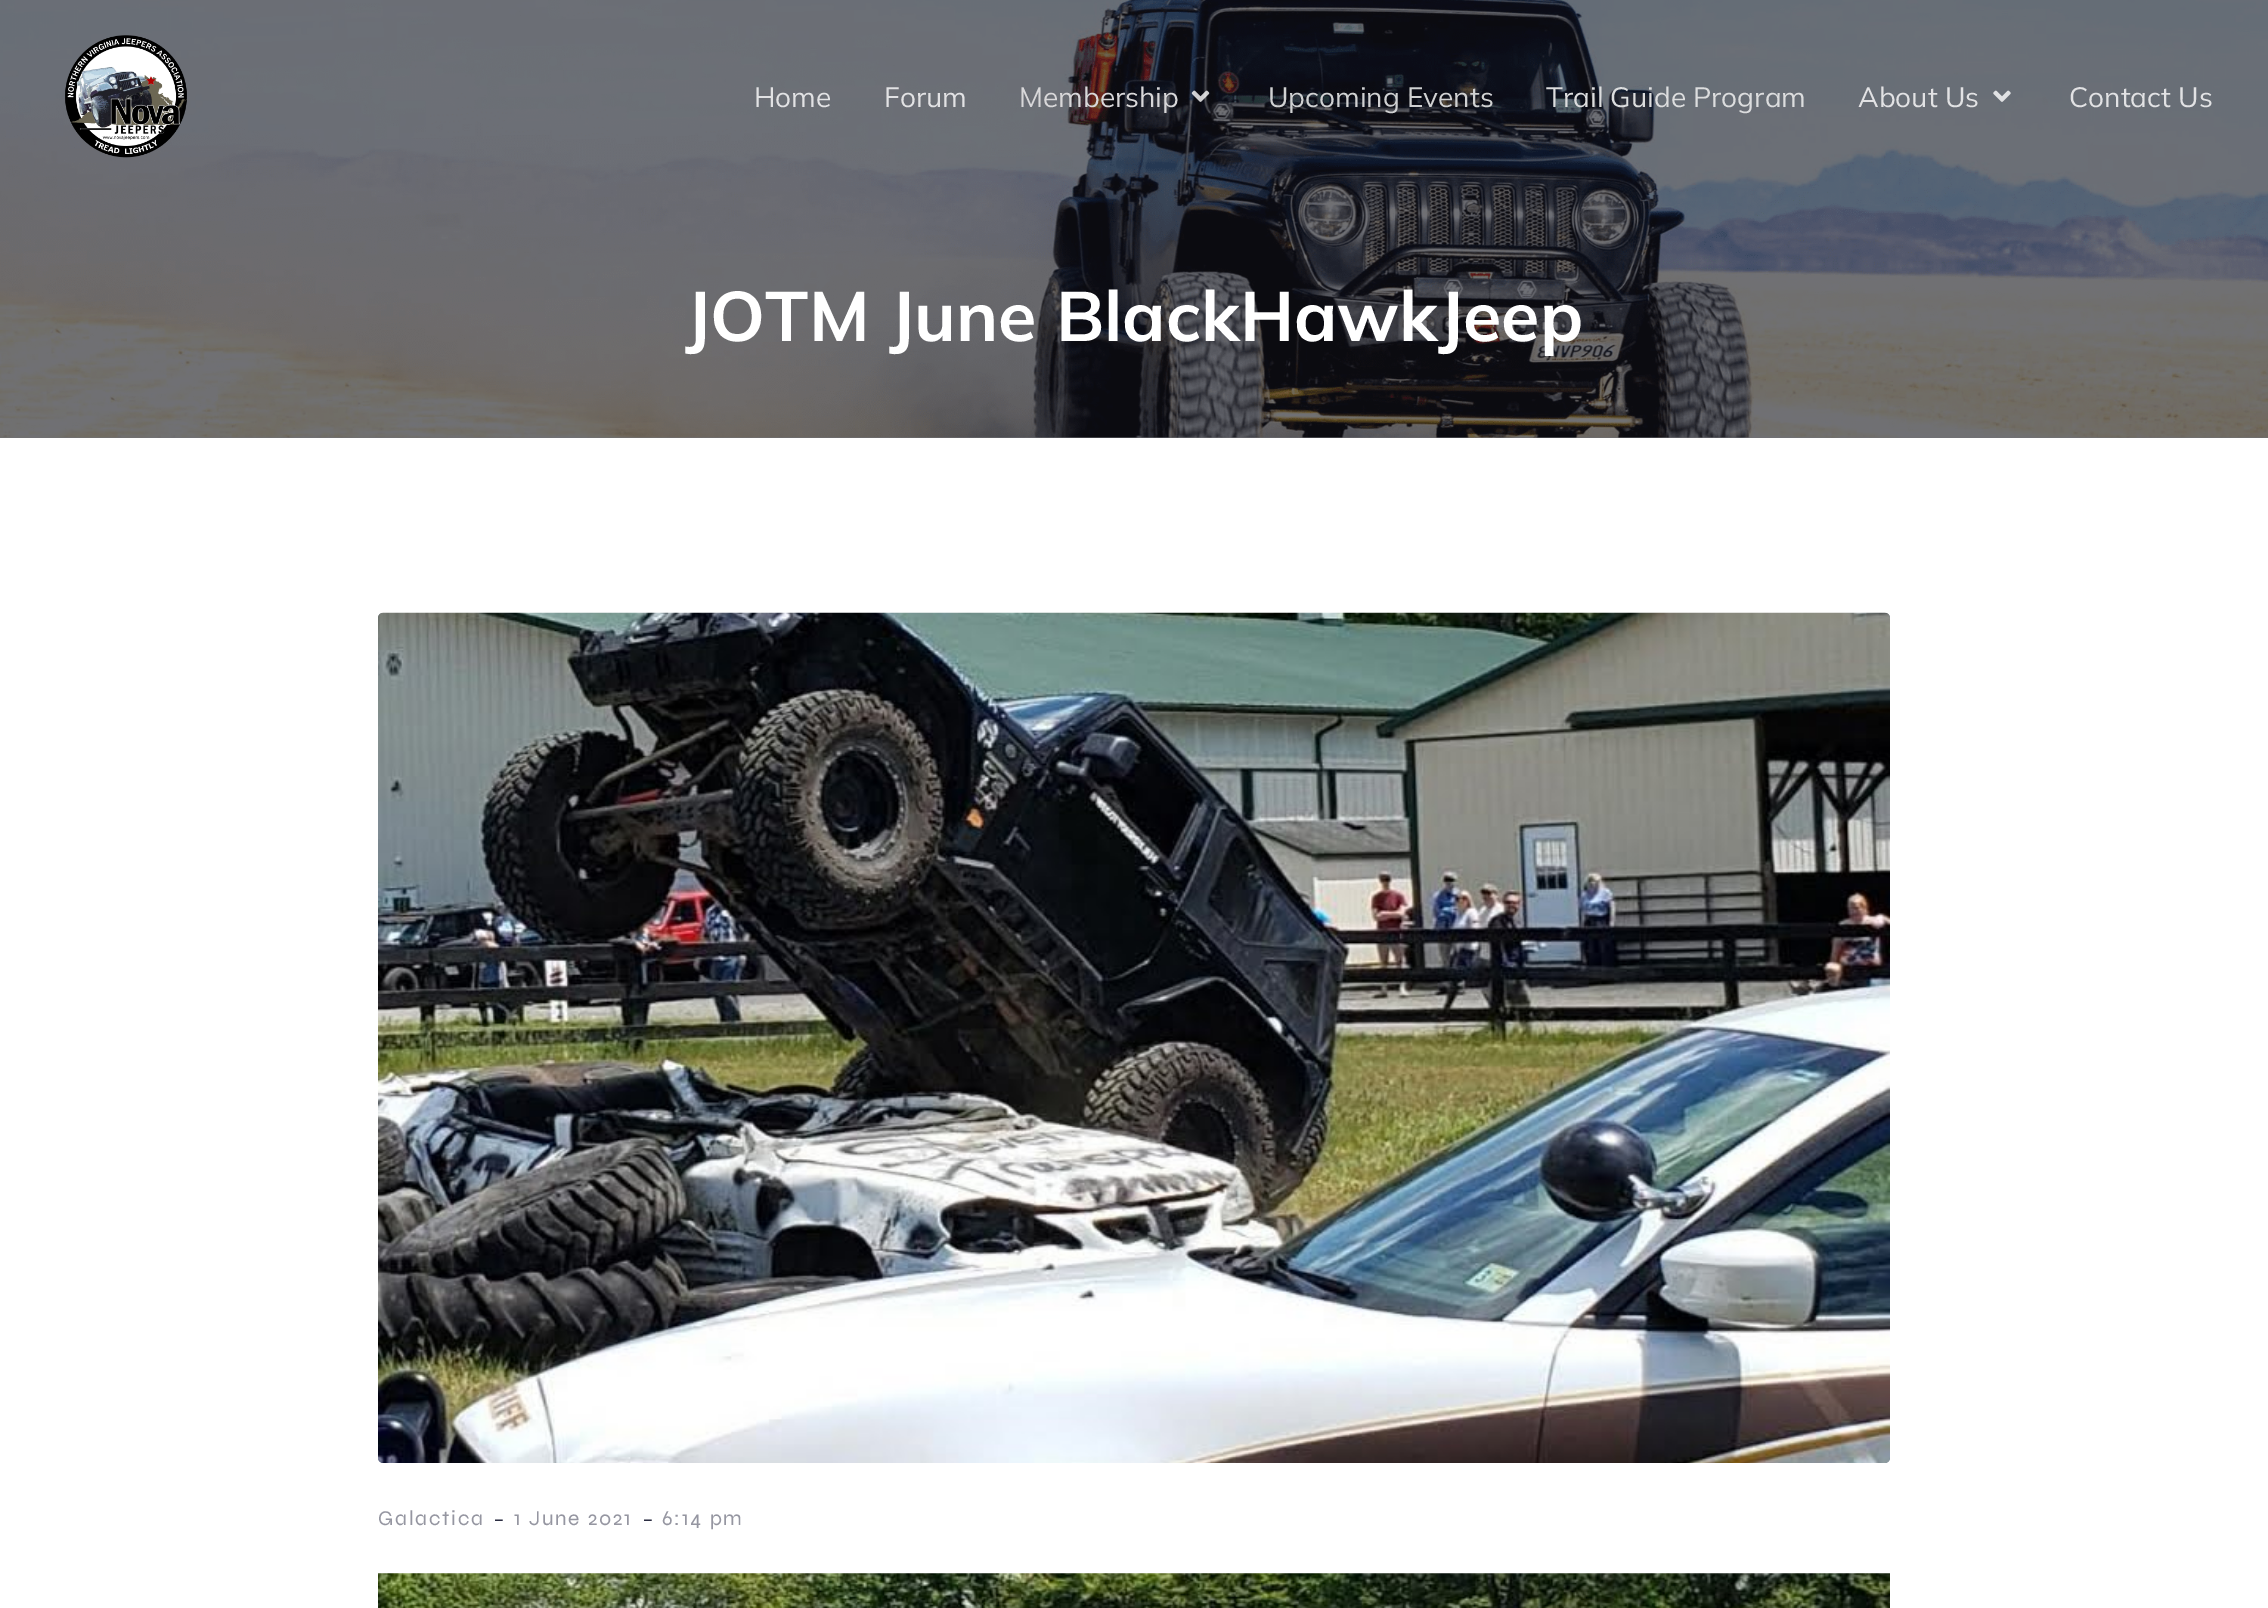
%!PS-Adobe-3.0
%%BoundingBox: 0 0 2268 1608
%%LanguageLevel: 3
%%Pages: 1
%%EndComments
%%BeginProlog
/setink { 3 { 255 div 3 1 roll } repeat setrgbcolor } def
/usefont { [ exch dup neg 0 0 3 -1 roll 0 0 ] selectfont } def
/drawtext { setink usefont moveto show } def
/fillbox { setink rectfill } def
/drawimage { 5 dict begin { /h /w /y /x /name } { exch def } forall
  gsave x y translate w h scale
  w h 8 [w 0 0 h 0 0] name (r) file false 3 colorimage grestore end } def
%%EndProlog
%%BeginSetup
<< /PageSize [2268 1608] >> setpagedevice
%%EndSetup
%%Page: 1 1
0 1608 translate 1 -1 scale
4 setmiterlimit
0 0 2268 1608 255 255 255 fillbox
0 437 2268 1 112 113 118 fillbox
(assets/img4.rgb) 0 0 2268 438 drawimage
(assets/img1.rgb) 65 35 122 123 drawimage
(Home) 754 107 /Mulish-Regular 28 226 226 228 drawtext
(Forum) 884 107 /Mulish-Regular 28 226 226 228 drawtext
(Membership) 1019 107 /Mulish-Regular 28 216 215 217 drawtext
(assets/img2.rgb) 1191 90 19 12 drawimage
(Upcoming Events) 1268 107 /Mulish-Regular 28 208 209 210 drawtext
(Trail Guide Program) 1546 107 /Mulish-Regular 28 220 221 222 drawtext
(About Us) 1858 107 /Mulish-Regular 28 226 226 228 drawtext
(assets/img3.rgb) 1993 90 18 12 drawimage
(Contact Us) 2069 107 /Mulish-Regular 28 226 226 228 drawtext
(JOTM June BlackHawkJeep) 685 341 /Mulish-Bold 70 255 255 255 drawtext
(assets/img5.rgb) 378 612 1512 851 drawimage
/Syne-Regular 21 usefont
149 150 161 setink
378 1525 moveto 1.75 0 (Galactica) ashow
(-) 493 1528 /Mulish-Light 28 43 45 66 drawtext
/Syne-Regular 21 usefont
149 150 161 setink
514 1525 moveto 1.75 0 (1 June 2021) ashow
(-) 642 1528 /Mulish-Light 28 43 45 66 drawtext
/Syne-Regular 21 usefont
149 150 161 setink
662 1525 moveto 1.75 0 (6:14 pm) ashow
(assets/img6.rgb) 378 1573 1512 35 drawimage
showpage
%%EOF
